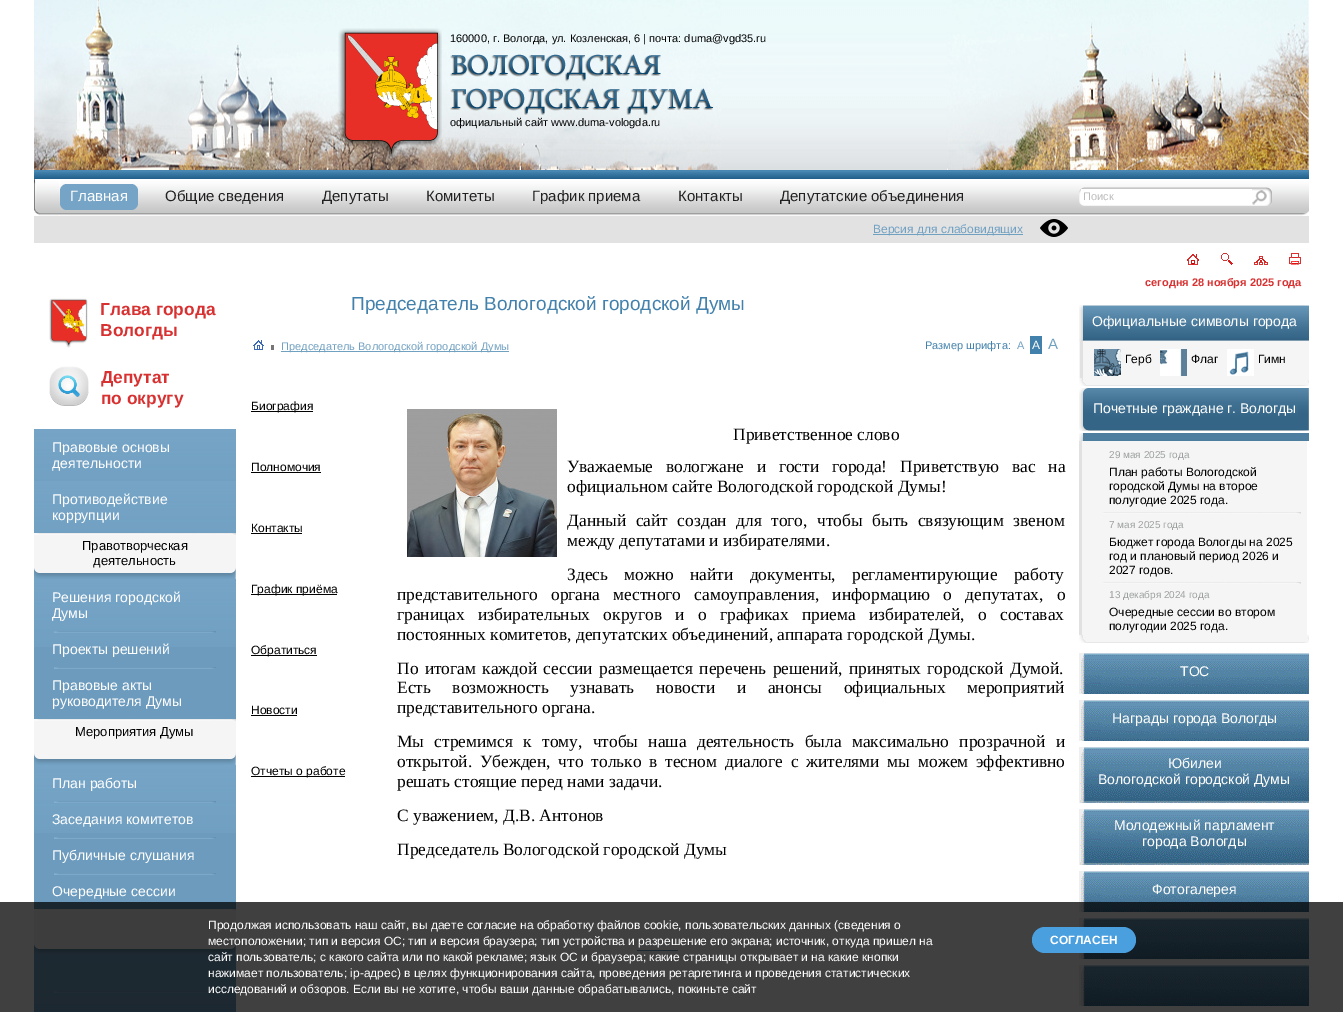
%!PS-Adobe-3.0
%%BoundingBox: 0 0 1343 1012
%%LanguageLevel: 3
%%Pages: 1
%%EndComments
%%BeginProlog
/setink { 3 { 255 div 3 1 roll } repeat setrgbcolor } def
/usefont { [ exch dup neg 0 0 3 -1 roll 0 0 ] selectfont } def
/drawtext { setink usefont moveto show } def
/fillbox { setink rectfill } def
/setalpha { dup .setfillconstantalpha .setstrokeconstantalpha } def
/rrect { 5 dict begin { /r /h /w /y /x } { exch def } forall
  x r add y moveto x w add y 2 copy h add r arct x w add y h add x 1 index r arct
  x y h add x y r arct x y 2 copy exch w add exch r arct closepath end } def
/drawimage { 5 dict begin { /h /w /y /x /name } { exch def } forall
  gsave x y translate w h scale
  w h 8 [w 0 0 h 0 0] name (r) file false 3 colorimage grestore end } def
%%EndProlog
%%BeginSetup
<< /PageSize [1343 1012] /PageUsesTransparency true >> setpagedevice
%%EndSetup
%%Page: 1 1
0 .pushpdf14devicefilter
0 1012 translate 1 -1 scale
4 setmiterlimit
0 0 1343 1012 255 255 255 fillbox
(assets/img1.rgb) 34 0 687 170 drawimage
(assets/img2.rgb) 338 28 104 131 drawimage
(assets/img4.rgb) 721 0 225 170 drawimage
(160000, г. Вологда, ул. Козленская, 6 | почта: duma@vgd35.ru) 450 42 /LiberationSans-Regular 11 0 0 0 drawtext
(assets/img3.rgb) 450 54 263 61 drawimage
(официальный сайт www.duma-vologda.ru) 450 126 /LiberationSans-Regular 11 0 0 0 drawtext
(assets/img5.rgb) 946 0 363 170 drawimage
(assets/img6.rgb) 34 170 1275 9 drawimage
34 216 1275 27 226 226 227 fillbox
(assets/img7.rgb) 34 179 26 37 drawimage
(assets/img8.rgb) 60 179 1232 37 drawimage
117 164 198 setink
60 184 78 26 7 rrect fill
(Главная) 70 201 /LiberationSans-Regular 15 255 255 255 drawtext
(Общие сведения) 165 201 /LiberationSans-Regular 15 33 33 33 drawtext
(Депутаты) 322 201 /LiberationSans-Regular 15 33 33 33 drawtext
(Комитеты) 426 201 /LiberationSans-Regular 15 33 33 33 drawtext
(График приема) 532 201 /LiberationSans-Regular 15 33 33 33 drawtext
(Контакты) 678 201 /LiberationSans-Regular 15 33 33 33 drawtext
(Депутатские объединения) 780 201 /LiberationSans-Regular 15 33 33 33 drawtext
(assets/img9.rgb) 1079 187 173 19 drawimage
1081 189 171 3 255 255 255 fillbox
(Поиск) 1083 200 /LiberationSans-Regular 11 187 187 187 drawtext
(assets/img10.rgb) 1252 187 20 19 drawimage
873 234 150 1 113 161 193 fillbox
(Версия для слабовидящих) 873 233 /LiberationSans-Regular 12 113 161 193 drawtext
(assets/img11.rgb) 1040 219 28 18 drawimage
(assets/img12.rgb) 1292 179 17 37 drawimage
(assets/img13.rgb) 49 298 39 50 drawimage
(Глава города) 100 315 /LiberationSans-Bold 17.35 215 49 49 drawtext
(Вологды) 100 336 /LiberationSans-Bold 17.35 215 49 49 drawtext
(assets/img14.rgb) 49 366 40 40 drawimage
(Депутат) 101 383 /LiberationSans-Bold 17.35 215 49 49 drawtext
(по округу) 101 404 /LiberationSans-Bold 17.35 215 49 49 drawtext
(assets/img15.rgb) 34 429 202 52 drawimage
(Правовые основы) 52 452 /LiberationSans-Regular 14 255 255 255 drawtext
(деятельности) 52 468 /LiberationSans-Regular 14 255 255 255 drawtext
(assets/img15.rgb) 34 481 202 52 drawimage
(Противодействие) 52 504 /LiberationSans-Regular 14 255 255 255 drawtext
(коррупции) 52 520 /LiberationSans-Regular 14 255 255 255 drawtext
(assets/img16.rgb) 34 533 202 46 drawimage
(Правотворческая) 82 550 /LiberationSans-Regular 13 0 0 0 drawtext
(деятельность) 93 565 /LiberationSans-Regular 13 0 0 0 drawtext
34 647 202 72 108 155 189 fillbox
(assets/img17.rgb) 34 579 202 68 drawimage
(Решения городской) 52 602 /LiberationSans-Regular 14 255 255 255 drawtext
(Думы) 52 618 /LiberationSans-Regular 14 255 255 255 drawtext
(assets/img18.rgb) 54 631 162 2 drawimage
(Проекты решений) 52 654 /LiberationSans-Regular 14 255 255 255 drawtext
(assets/img18.rgb) 54 667 162 2 drawimage
(Правовые акты) 52 690 /LiberationSans-Regular 14 255 255 255 drawtext
(руководителя Думы) 52 706 /LiberationSans-Regular 14 255 255 255 drawtext
(assets/img16.rgb) 34 719 202 46 drawimage
(Мероприятия Думы) 75 736 /LiberationSans-Regular 13 0 0 0 drawtext
34 833 202 76 108 155 189 fillbox
(assets/img17.rgb) 34 765 202 68 drawimage
(План работы) 52 788 /LiberationSans-Regular 14 255 255 255 drawtext
(assets/img18.rgb) 54 801 162 2 drawimage
(Заседания комитетов) 52 824 /LiberationSans-Regular 14 255 255 255 drawtext
(assets/img18.rgb) 54 837 162 2 drawimage
(Публичные слушания) 52 860 /LiberationSans-Regular 14 255 255 255 drawtext
(assets/img18.rgb) 54 873 162 2 drawimage
(Очередные сессии) 52 896 /LiberationSans-Regular 14 255 255 255 drawtext
(assets/img16.rgb) 34 909 202 46 drawimage
(assets/img19.rgb) 34 955 202 57 drawimage
(assets/img18.rgb) 54 991 162 2 drawimage
(Председатель Вологодской городской Думы) 351 310 /LiberationSans-Regular 19 66 129 172 drawtext
(assets/img20.rgb) 253 340 11 10 drawimage
271 345 3 5 119 117 117 fillbox
281 351 228 1 113 161 193 fillbox
(Председатель Вологодской городской Думы) 281 350 /LiberationSans-Regular 11 113 161 193 drawtext
(Размер шрифта:) 925 349 /LiberationSans-Regular 11 66 129 172 drawtext
(А) 1017 349 /LiberationSans-Regular 11 113 161 193 drawtext
1030 336 12 18 66 129 172 fillbox
(А) 1032 349 /LiberationSans-Regular 12 255 255 255 drawtext
(А) 1048 349 /LiberationSans-Regular 15 113 161 193 drawtext
251 411 62 1 0 0 0 fillbox
(Биография) 251 410 /LiberationSans-Regular 12 0 0 0 drawtext
(assets/img21.rgb) 407 409 150 148 drawimage
(Приветственное слово) 733 440 /LiberationSerif-Regular 17.35 0 0 0 drawtext
567 472 moveto 8.5 0 32 (Уважаемые вологжане и гости города! Приветствую вас на) widthshow
(официальном сайте Вологодской городской Думы!) 567 492 /LiberationSerif-Regular 17.35 0 0 0 drawtext
567 526 moveto 5.25 0 32 (Данный сайт создан для того, чтобы быть связующим звеном) widthshow
(между депутатами и избирателями.) 567 546 /LiberationSerif-Regular 17.35 0 0 0 drawtext
567 580 moveto 12 0 32 (Здесь можно найти документы, регламентирующие работу) widthshow
397 600 moveto 9 0 32 (представительного органа местного самоуправления, информацию о депутатах, о) widthshow
397 620 moveto 9 0 32 (границах избирательных округов и о графиках приема избирателей, о составах) widthshow
(постоянных комитетов, депутатских объединений, аппарата городской Думы.) 397 640 /LiberationSerif-Regular 17.35 0 0 0 drawtext
397 674 moveto 2 0 32 (По итогам каждой сессии размещается перечень решений, принятых городской Думой.) widthshow
397 693 moveto 17.25 0 32 (Есть возможность узнавать новости и анонсы официальных мероприятий) widthshow
(представительного органа.) 397 713 /LiberationSerif-Regular 17.35 0 0 0 drawtext
397 747 moveto 6 0 32 (Мы стремимся к тому, чтобы наша деятельность была максимально прозрачной и) widthshow
397 767 moveto 3.5 0 32 (открытой. Убежден, что только в тесном диалоге с жителями мы можем эффективно) widthshow
(решать стоящие перед нами задачи.) 397 787 /LiberationSerif-Regular 17.35 0 0 0 drawtext
(С уважением, Д.В. Антонов) 397 821 /LiberationSerif-Regular 17.35 0 0 0 drawtext
(Председатель Вологодской городской Думы) 397 855 /LiberationSerif-Regular 17.35 0 0 0 drawtext
(Полномочия) 251 471 /LiberationSans-Regular 12 0 0 0 drawtext
251 472 70 1 0 0 0 fillbox
(Контакты) 251 532 /LiberationSans-Regular 12 0 0 0 drawtext
251 533 51 1 0 0 0 fillbox
251 594 86 1 0 0 0 fillbox
(График приёма) 251 593 /LiberationSans-Regular 12 0 0 0 drawtext
251 655 66 1 0 0 0 fillbox
(Обратиться) 251 654 /LiberationSans-Regular 12 0 0 0 drawtext
(Новости) 251 714 /LiberationSans-Regular 12 0 0 0 drawtext
251 715 46 1 0 0 0 fillbox
251 776 94 1 0 0 0 fillbox
(Отчеты о работе) 251 775 /LiberationSans-Regular 12 0 0 0 drawtext
637 950 41 1 113 161 193 fillbox
(assets/img22.rgb) 1187 254 12 11 drawimage
(assets/img23.rgb) 1221 253 12 12 drawimage
(assets/img24.rgb) 1254 256 14 9 drawimage
(assets/img25.rgb) 1289 253 12 12 drawimage
(сегодня 28 ноября 2025 года) 1145 286 /LiberationSans-Bold 11 215 49 49 drawtext
(assets/img26.rgb) 1079 305 230 36 drawimage
(Официальные символы города) 1092 326 /LiberationSans-Regular 14 255 255 255 drawtext
1079 341 230 37 245 245 245 fillbox
1080 341 3 37 225 225 225 fillbox
(assets/img27.rgb) 1094 349 27 27 drawimage
(Герб) 1125 363 /LiberationSans-Regular 12 0 0 0 drawtext
(assets/img28.rgb) 1160 349 27 27 drawimage
(Флаг) 1191 363 /LiberationSans-Regular 12 0 0 0 drawtext
(assets/img29.rgb) 1227 349 27 27 drawimage
(Гимн) 1258 363 /LiberationSans-Regular 12 0 0 0 drawtext
(assets/img30.rgb) 1079 378 230 8 drawimage
(assets/img31.rgb) 1079 388 230 43 drawimage
(Почетные граждане г. Вологды) 1093 413 /LiberationSans-Regular 14 255 255 255 drawtext
1079 433 230 8 77 126 159 fillbox
(assets/img32.rgb) 1079 433 4 8 drawimage
1082 441 225 194 245 245 245 fillbox
1079 441 3 194 225 225 225 fillbox
(29 мая 2025 года) 1109 458 /LiberationSans-Regular 10 156 158 159 drawtext
(План работы Вологодской) 1109 476 /LiberationSans-Regular 12 0 0 0 drawtext
(городской Думы на второе) 1109 490 /LiberationSans-Regular 12 0 0 0 drawtext
(полугодие 2025 года.) 1109 504 /LiberationSans-Regular 12 0 0 0 drawtext
(assets/img33.rgb) 1103 512 198 2 drawimage
(7 мая 2025 года) 1109 528 /LiberationSans-Regular 10 156 158 159 drawtext
(Бюджет города Вологды на 2025) 1109 546 /LiberationSans-Regular 12 0 0 0 drawtext
(год и плановый период 2026 и) 1109 560 /LiberationSans-Regular 12 0 0 0 drawtext
(2027 годов.) 1109 574 /LiberationSans-Regular 12 0 0 0 drawtext
(assets/img33.rgb) 1103 582 198 2 drawimage
(13 декабря 2024 года) 1109 598 /LiberationSans-Regular 10 156 158 159 drawtext
(Очередные сессии во втором) 1109 616 /LiberationSans-Regular 12 0 0 0 drawtext
(полугодии 2025 года.) 1109 630 /LiberationSans-Regular 12 0 0 0 drawtext
(assets/img30.rgb) 1079 635 230 8 drawimage
(assets/img34.rgb) 1079 653 230 41 drawimage
(ТОС) 1180 676 /LiberationSans-Regular 14 255 255 255 drawtext
(assets/img34.rgb) 1079 700 230 41 drawimage
(Награды города Вологды) 1112 723 /LiberationSans-Regular 14 255 255 255 drawtext
(assets/img35.rgb) 1079 747 230 56 drawimage
(Юбилеи) 1168 768 /LiberationSans-Regular 14 255 255 255 drawtext
(Вологодской городской Думы) 1098 784 /LiberationSans-Regular 14 255 255 255 drawtext
(assets/img35.rgb) 1079 809 230 56 drawimage
(Молодежный парламент) 1114 830 /LiberationSans-Regular 14 255 255 255 drawtext
(города Вологды) 1142 846 /LiberationSans-Regular 14 255 255 255 drawtext
(assets/img34.rgb) 1079 871 230 41 drawimage
(Фотогалерея) 1152 894 /LiberationSans-Regular 14 255 255 255 drawtext
(assets/img34.rgb) 1079 918 230 41 drawimage
(assets/img34.rgb) 1079 965 230 41 drawimage
0.75 setalpha
0 902 1343 110 0 0 0 fillbox
1 setalpha
(Продолжая использовать наш сайт, вы даете согласие на обработку файлов cookie, пользовательских данных \(сведения о) 208 929 /LiberationSans-Regular 12 255 255 255 drawtext
(местоположении; тип и версия ОС; тип и версия браузера; тип устройства и разрешение его экрана; источник, откуда пришел на) 208 945 /LiberationSans-Regular 12 255 255 255 drawtext
(сайт пользователь; с какого сайта или по какой рекламе; язык ОС и браузера; какие страницы открывает и на какие кнопки) 208 961 /LiberationSans-Regular 12 255 255 255 drawtext
(нажимает пользователь; ip-адрес\) в целях функционирования сайта, проведения ретаргетинга и проведения статистических) 208 977 /LiberationSans-Regular 12 255 255 255 drawtext
(исследований и обзоров. Если вы не хотите, чтобы ваши данные обрабатывались, покиньте сайт) 208 993 /LiberationSans-Regular 12 255 255 255 drawtext
74 159 223 setink
1032 927 104 26 13 rrect fill
(СОГЛАСЕН) 1050 944 /LiberationSans-Bold 12 255 255 255 drawtext
.poppdf14devicefilter showpage
%%EOF
